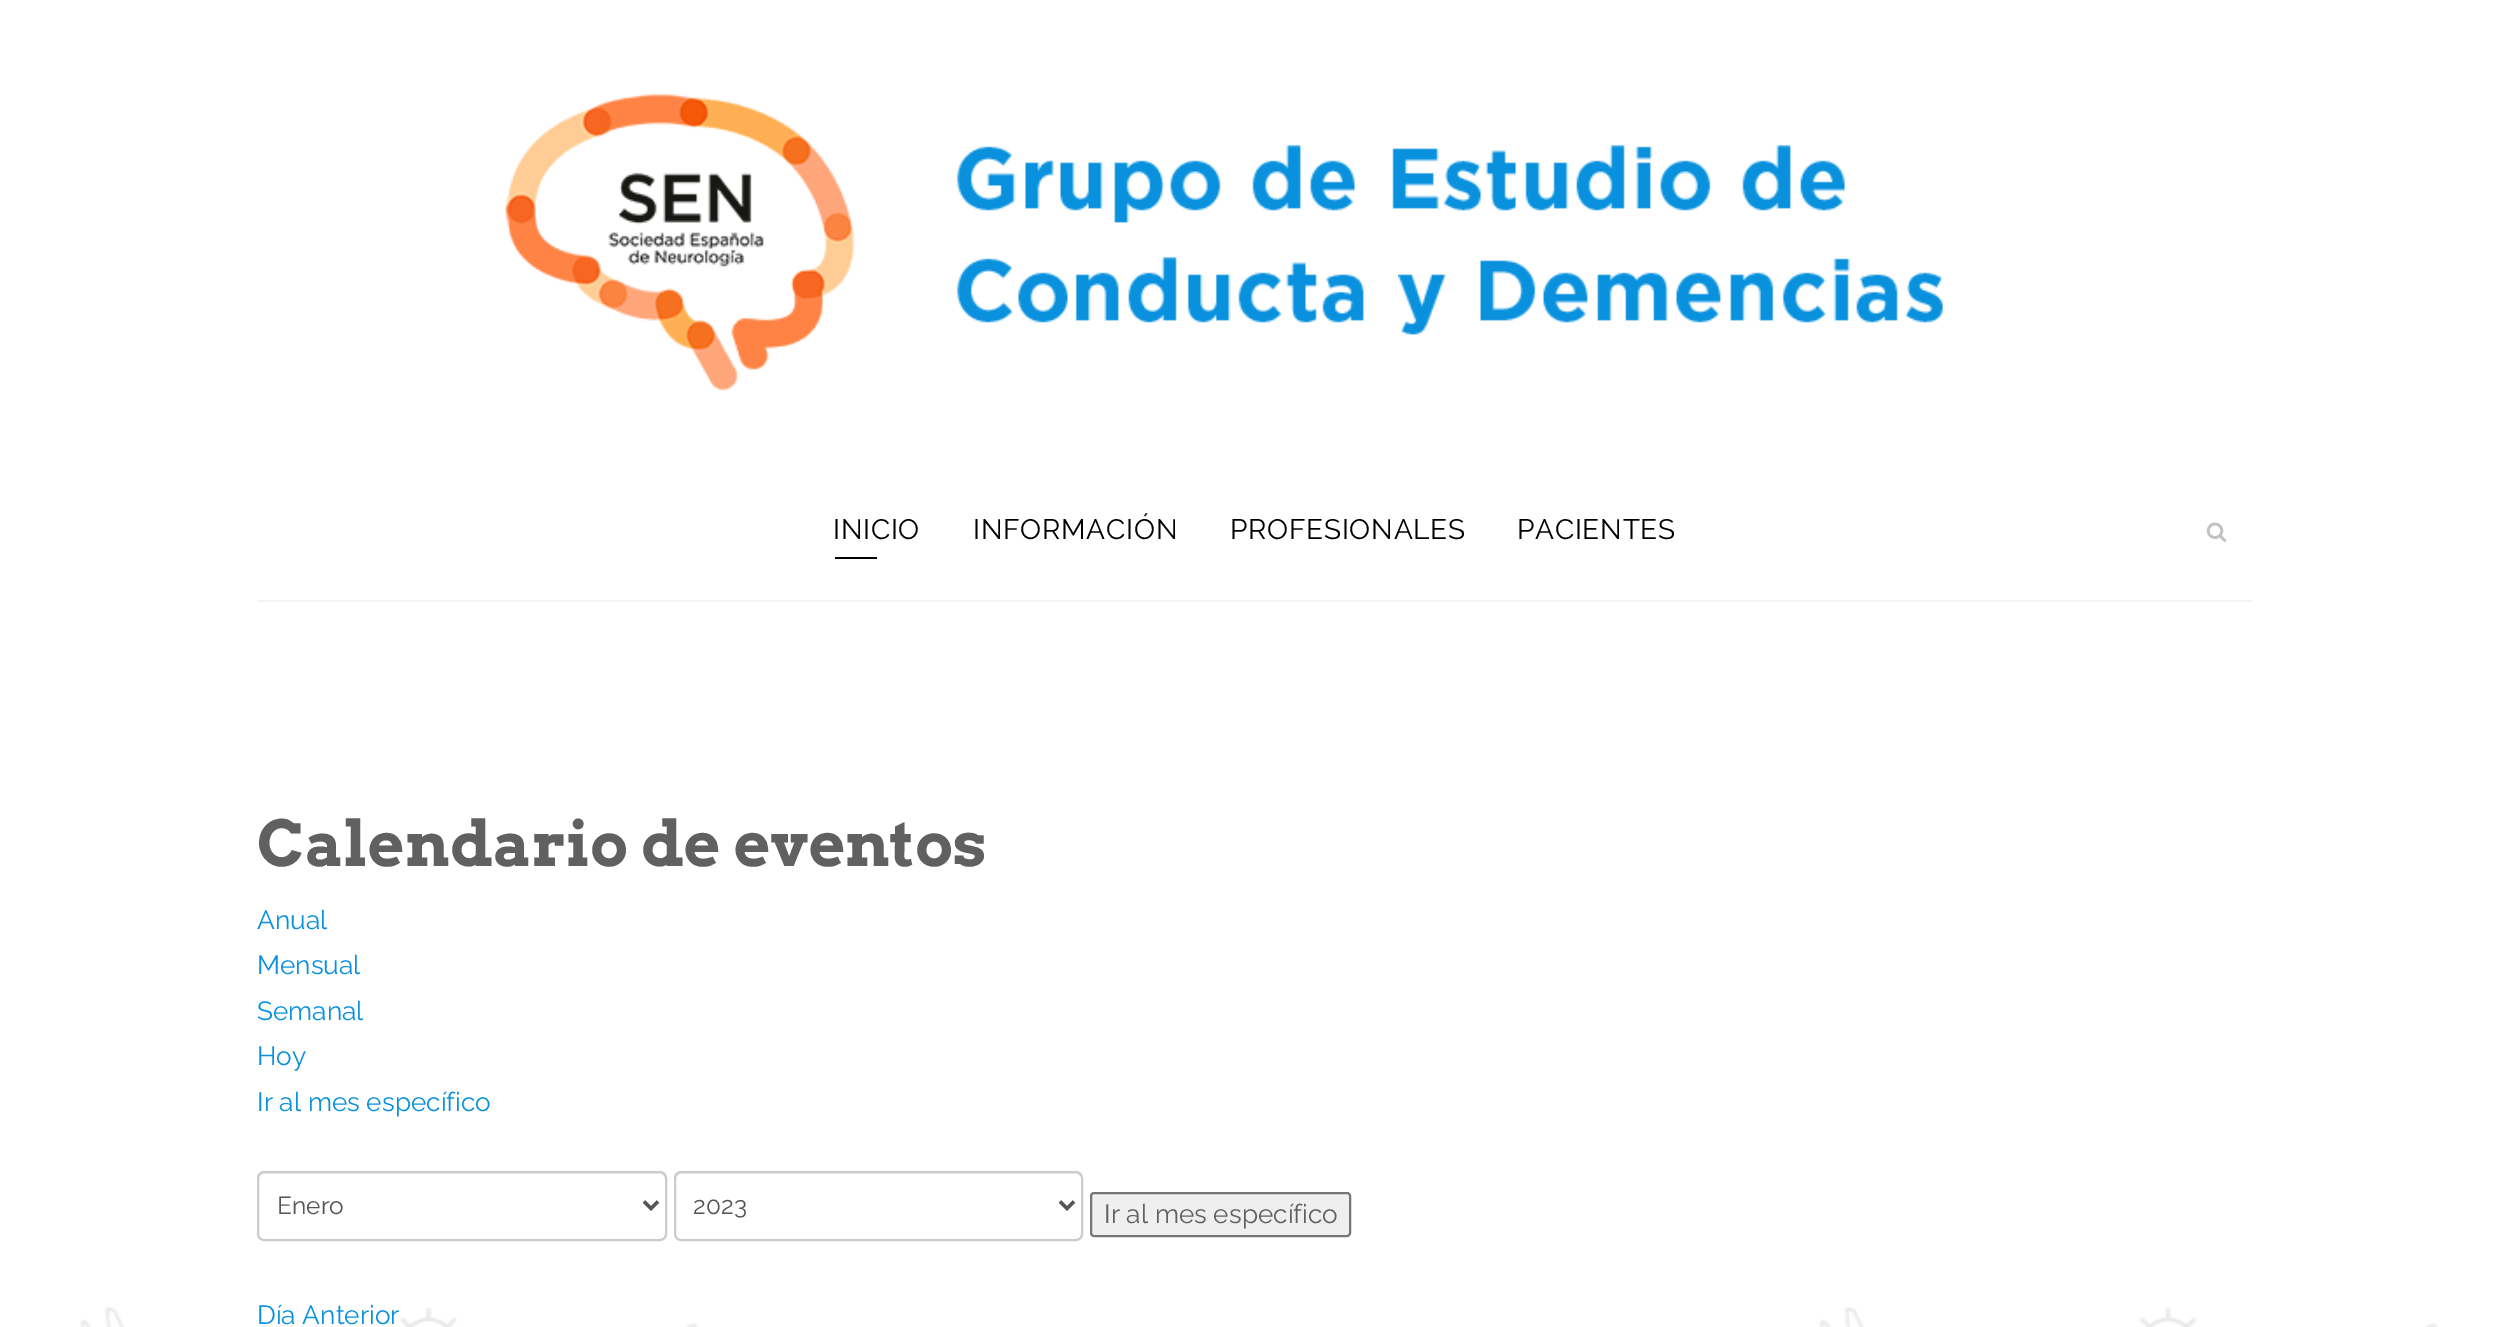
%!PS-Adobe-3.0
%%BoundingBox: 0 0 2509 1327
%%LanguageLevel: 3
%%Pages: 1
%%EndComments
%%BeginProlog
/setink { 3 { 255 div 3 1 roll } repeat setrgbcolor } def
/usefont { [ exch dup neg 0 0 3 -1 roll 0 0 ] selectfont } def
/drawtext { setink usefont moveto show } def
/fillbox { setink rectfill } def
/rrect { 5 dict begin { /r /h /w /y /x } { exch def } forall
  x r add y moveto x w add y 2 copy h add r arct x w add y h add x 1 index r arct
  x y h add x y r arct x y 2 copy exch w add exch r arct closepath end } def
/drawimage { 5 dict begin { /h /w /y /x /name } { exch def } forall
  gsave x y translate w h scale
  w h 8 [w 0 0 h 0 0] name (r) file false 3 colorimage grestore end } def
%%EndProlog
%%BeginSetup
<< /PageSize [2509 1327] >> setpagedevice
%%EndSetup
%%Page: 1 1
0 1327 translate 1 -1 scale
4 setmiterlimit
0 0 2509 1327 255 255 255 fillbox
(assets/img1.rgb) 505 94 1438 297 drawimage
257 600 1995 2 243 243 243 fillbox
/Raleway-Regular 28 usefont
0 0 0 setink
833 539 moveto 0.75 0 (INICIO) ashow
835 557 42 2 0 0 0 fillbox
973 539 moveto 0.75 0 (INFORMACIÓN) ashow
1230 539 moveto 0.75 0 (PROFESIONALES) ashow
1517 539 moveto 0.75 0 (PACIENTES) ashow
(assets/img2.rgb) 2206 522 21 20 drawimage
(Calendario de eventos) 257 866 /Arvo-Bold 63 96 96 96 drawtext
(Anual) 257 929 /Raleway-Regular 26.25 9 145 222 drawtext
(Mensual) 257 974 /Raleway-Regular 26.25 9 145 222 drawtext
(Semanal) 257 1020 /Raleway-Regular 26.25 9 145 222 drawtext
(Hoy) 257 1065 /Raleway-Regular 26.25 9 145 222 drawtext
(Ir al mes específico) 257 1111 /Raleway-Regular 26.25 9 145 222 drawtext
236 236 236 setink
264 1174 moveto 660 1174 lineto 663 1174 665 1177 665 1180 curveto 665 1178 lineto 665 1175 663 1173 660 1173 curveto 264 1173 lineto 261 1173 259 1175 259 1178 curveto 259 1180 lineto 259 1177 261 1174 264 1174 curveto closepath fill
204 204 204 setink
2 setlinewidth
258 1172 408 68 6 rrect stroke
85 85 85 setink
3.5 setlinewidth
644 1201.5 moveto 651 1208.5 lineto 658 1201.5 lineto stroke
(Enero) 277 1214 /Raleway-Regular 24.5 85 85 85 drawtext
236 236 236 setink
681 1174 moveto 1076 1174 lineto 1079 1174 1082 1177 1082 1180 curveto 1082 1178 lineto 1082 1175 1080 1173 1077 1173 curveto 681 1173 lineto 678 1173 676 1175 676 1178 curveto 676 1180 lineto 676 1177 678 1174 681 1174 curveto closepath fill
204 204 204 setink
2 setlinewidth
675 1172 407 68 6 rrect stroke
85 85 85 setink
3.5 setlinewidth
1060 1201.5 moveto 1067 1208.5 lineto 1074 1201.5 lineto stroke
(2023) 693 1214 /Raleway-Regular 24.5 85 85 85 drawtext
239 239 239 setink
1091 1193 259 43 3 rrect gsave fill grestore
118 118 118 setink
2 setlinewidth
stroke
(Ir al mes específico) 1104 1223 /Raleway-Regular 26.25 96 96 96 drawtext
(assets/img3.rgb) 80 1307 2358 20 drawimage
(Día Anterior) 257 1324 /Raleway-Regular 26.25 9 145 222 drawtext
showpage
%%EOF
